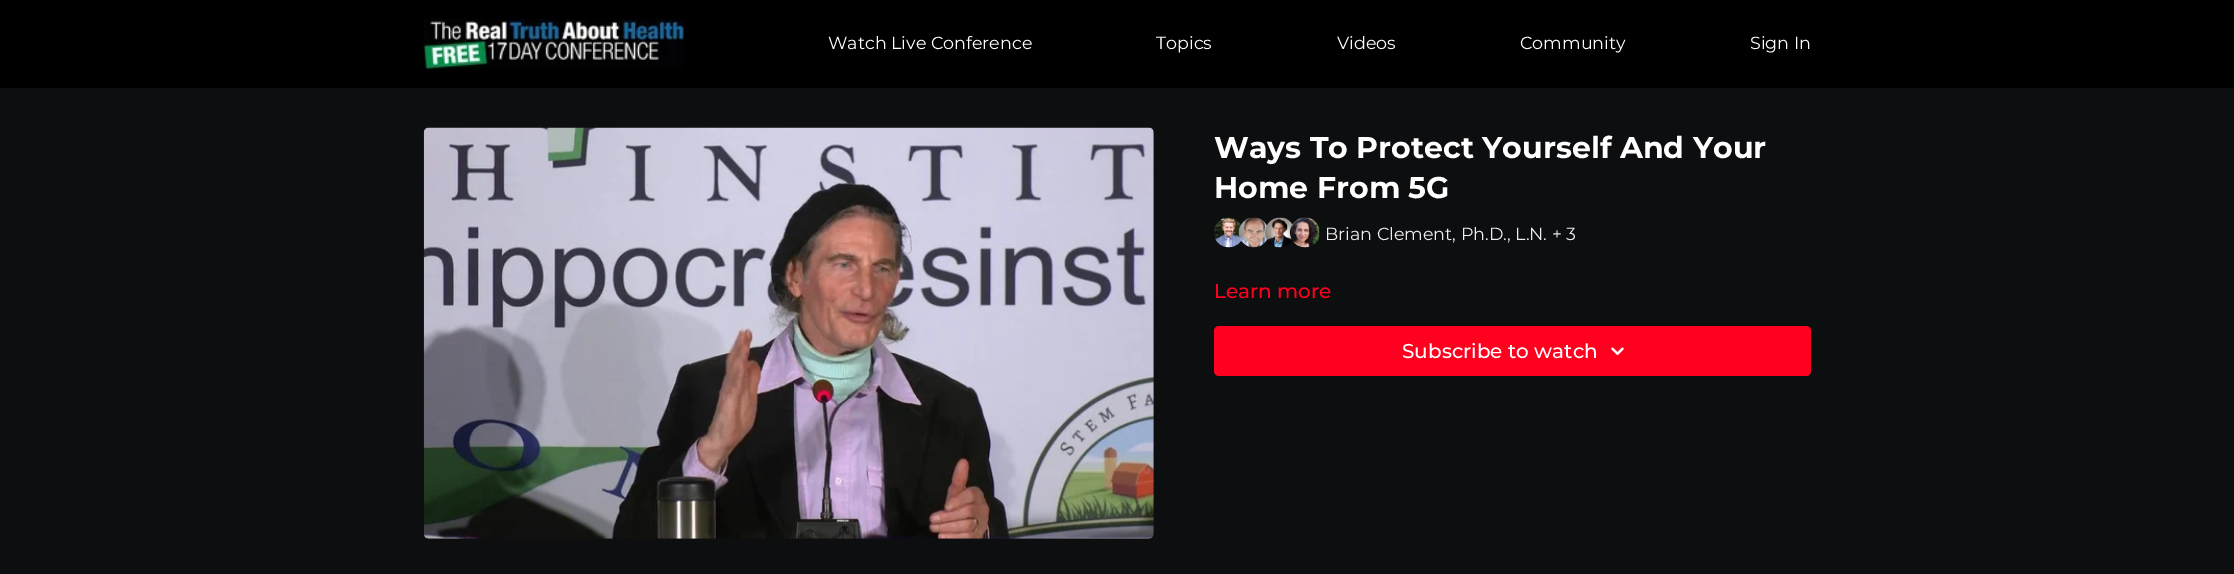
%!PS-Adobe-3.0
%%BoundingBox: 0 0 2234 574
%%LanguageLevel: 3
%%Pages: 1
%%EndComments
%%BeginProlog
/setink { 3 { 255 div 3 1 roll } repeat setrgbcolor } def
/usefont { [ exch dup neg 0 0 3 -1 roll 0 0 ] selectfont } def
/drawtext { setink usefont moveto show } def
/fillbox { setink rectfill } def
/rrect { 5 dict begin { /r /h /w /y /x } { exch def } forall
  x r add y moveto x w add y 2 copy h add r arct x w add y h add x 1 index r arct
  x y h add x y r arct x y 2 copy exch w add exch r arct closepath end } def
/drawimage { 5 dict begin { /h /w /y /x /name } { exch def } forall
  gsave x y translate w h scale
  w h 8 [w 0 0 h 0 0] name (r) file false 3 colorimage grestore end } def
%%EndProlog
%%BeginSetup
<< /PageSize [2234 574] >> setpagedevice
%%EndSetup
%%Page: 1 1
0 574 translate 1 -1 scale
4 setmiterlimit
0 0 2234 574 13 14 16 fillbox
0 0 2234 88 0 0 0 fillbox
(assets/img1.rgb) 423 18 261 51 drawimage
(Watch Live Conference) 828 49 /Montserrat-Regular 17.5 255 255 255 drawtext
(Topics) 1156 49 /Montserrat-Regular 17.5 255 255 255 drawtext
(Videos) 1337 49 /Montserrat-Regular 17.5 255 255 255 drawtext
(Community) 1520 49 /Montserrat-Regular 17.5 255 255 255 drawtext
(Sign In) 1750 49 /Montserrat-Regular 17.5 255 255 255 drawtext
(assets/img2.rgb) 423 127 731 412 drawimage
(Ways To Protect Yourself And Your) 1214 158 /Montserrat-Bold 30 255 255 255 drawtext
(Home From 5G) 1214 198 /Montserrat-Bold 30 255 255 255 drawtext
(assets/img3.rgb) 1214 217 28 31 drawimage
(assets/img4.rgb) 1238 217 30 31 drawimage
(assets/img5.rgb) 1265 217 28 31 drawimage
(assets/img6.rgb) 1290 217 30 31 drawimage
(Brian Clement, Ph.D., L.N. + 3) 1325 240 /Montserrat-Regular 17.5 238 238 238 drawtext
(Learn more) 1214 298 /Montserrat-Medium 20 255 0 31 drawtext
1214 326 597 50 5 rrect fill
(Subscribe to watch) 1402 358 /Montserrat-Medium 20 255 255 255 drawtext
(assets/img7.rgb) 1611 347 13 8 drawimage
showpage
%%EOF
